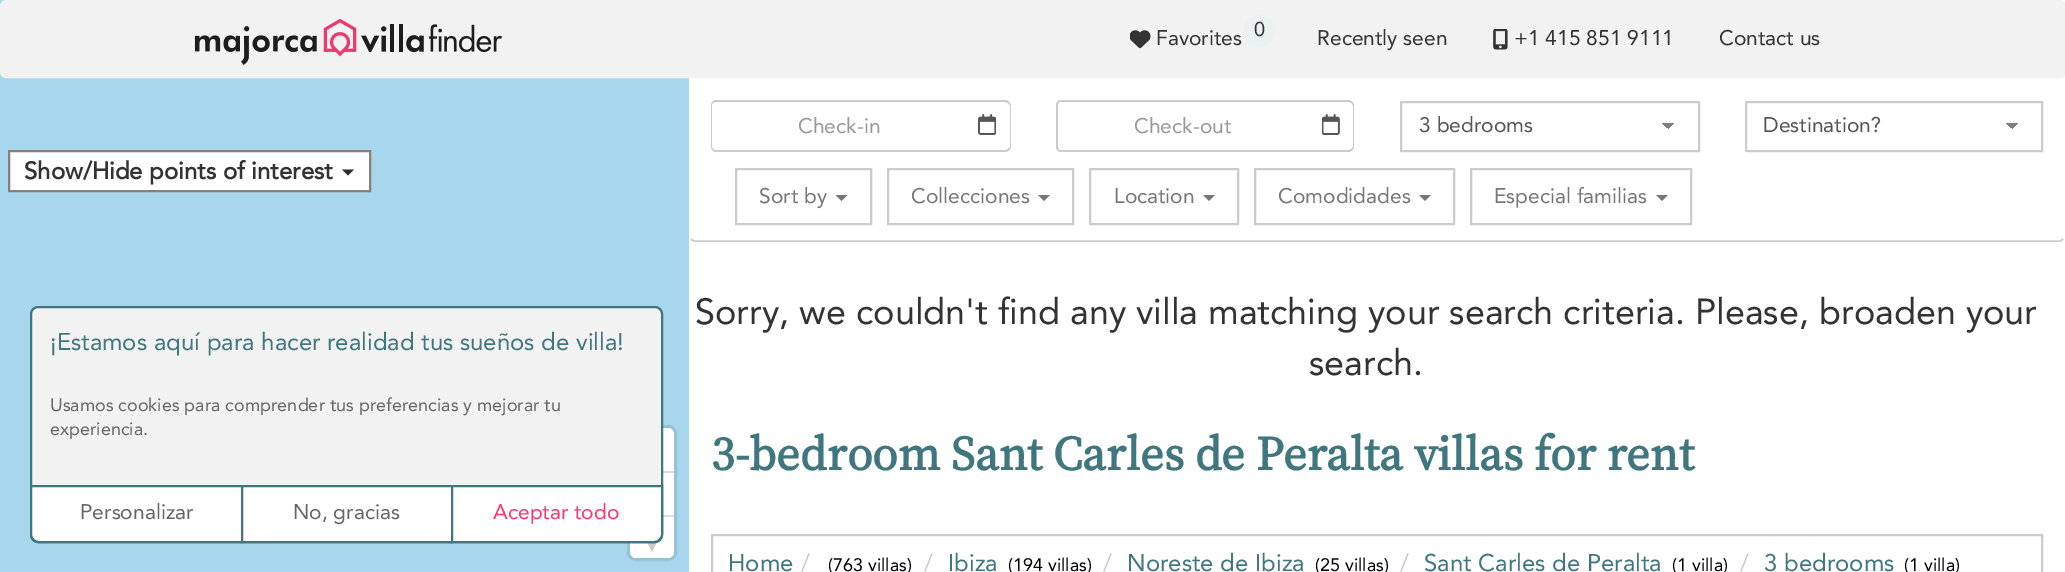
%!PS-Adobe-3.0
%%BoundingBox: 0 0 2065 572
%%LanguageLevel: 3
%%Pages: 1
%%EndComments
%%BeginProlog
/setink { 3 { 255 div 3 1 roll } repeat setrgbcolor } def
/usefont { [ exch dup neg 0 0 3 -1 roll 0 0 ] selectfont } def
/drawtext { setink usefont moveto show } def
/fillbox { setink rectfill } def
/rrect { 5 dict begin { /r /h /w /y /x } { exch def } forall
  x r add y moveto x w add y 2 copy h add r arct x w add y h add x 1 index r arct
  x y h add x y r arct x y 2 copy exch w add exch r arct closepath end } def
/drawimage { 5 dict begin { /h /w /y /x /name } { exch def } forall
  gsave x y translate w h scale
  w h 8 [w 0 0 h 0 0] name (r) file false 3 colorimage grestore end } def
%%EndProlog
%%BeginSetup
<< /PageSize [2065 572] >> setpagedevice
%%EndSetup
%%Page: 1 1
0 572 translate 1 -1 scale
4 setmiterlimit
0 0 2065 572 255 255 255 fillbox
0 0 689 572 168 215 237 fillbox
242 242 242 setink
1 1 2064 76 5 rrect gsave fill grestore
2 setlinewidth
stroke
(assets/img1.rgb) 194 18 309 47 drawimage
(assets/img2.rgb) 1130 30 21 19 drawimage
(Favorites) 1156 45 /Avenir-Regular 21 51 51 51 drawtext
233 242 241 setink
1244 15 31 32 15.5 rrect fill
(0) 1254 36 /Avenir-Regular 20 51 51 51 drawtext
(Recently seen) 1317 45 /Avenir-Regular 21 51 51 51 drawtext
(assets/img3.rgb) 1493 29 15 21 drawimage
(+1 415 851 9111) 1514 45 /Avenir-Regular 21 51 51 51 drawtext
(Contact us) 1719 45 /Avenir-Regular 21 51 51 51 drawtext
151 194 213 setink
3 setlinewidth
628.5 426.5 47 133 7.5 rrect stroke
255 255 255 setink
630 428 44 130 6 rrect fill
663 471 11 2 221 221 221 fillbox
663 515 11 2 221 221 221 fillbox
204 204 204 setink
646 540 moveto 652 552 lineto 658 540 lineto closepath fill
255 255 255 setink
9 151 moveto 370 151 lineto 370 191 lineto 9 191 lineto closepath gsave fill grestore
135 127 124 setink
2 setlinewidth
stroke
(Show/Hide points of interest) 24 179 /Avenir-Bold 24 51 51 51 drawtext
46 46 46 setink
342 169.5 moveto 354 169.5 lineto 348 175.5 lineto closepath fill
204 204 204 setink
716 100 moveto 966 100 lineto 966 152 lineto 716 152 lineto 713 152 711 149 711 147 curveto 711 105 lineto 711 103 713 100 716 100 curveto closepath 716 102 moveto 966 102 lineto 966 150 lineto 716 150 lineto 714 150 712 149 712 147 curveto 712 105 lineto 712 103 714 102 716 102 curveto closepath eofill
(Check-in) 798 133 /Avenir-Regular 21 153 153 153 drawtext
204 204 204 setink
966 100 moveto 1005 100 lineto 1008 100 1011 103 1011 106 curveto 1011 146 lineto 1011 149 1008 152 1005 152 curveto 966 152 lineto closepath 966 102 moveto 1005 102 lineto 1007 102 1010 104 1010 106 curveto 1010 146 lineto 1010 148 1007 150 1005 150 curveto 966 150 lineto closepath eofill
(assets/img4.rgb) 978 114 18 21 drawimage
1060 100 moveto 1310 100 lineto 1310 152 lineto 1060 152 lineto 1058 152 1056 149 1056 147 curveto 1056 105 lineto 1056 103 1058 100 1060 100 curveto closepath 1060 102 moveto 1310 102 lineto 1310 150 lineto 1060 150 lineto 1059 150 1058 149 1058 147 curveto 1058 105 lineto 1058 103 1059 102 1060 102 curveto closepath eofill
(Check-out) 1134 133 /Avenir-Regular 21 153 153 153 drawtext
204 204 204 setink
1310 100 moveto 1348 100 lineto 1352 100 1354 103 1354 106 curveto 1354 146 lineto 1354 149 1352 152 1348 152 curveto 1310 152 lineto closepath 1310 102 moveto 1348 102 lineto 1351 102 1353 104 1353 106 curveto 1353 146 lineto 1353 148 1351 150 1348 150 curveto 1310 150 lineto closepath eofill
(assets/img5.rgb) 1322 114 18 21 drawimage
gsave 1668 123 moveto 1676 123 lineto 1676 129 lineto 1668 129 lineto closepath clip newpath
<< /ShadingType 2 /ColorSpace /DeviceRGB /Coords [1668 123 1675 129] /Extend [true true] /Function << /FunctionType 3 /Domain [0 1] /Functions [<< /FunctionType 2 /Domain [0 1] /C0 [0.502 0.502 0.502] /C1 [0.502 0.502 0.502] /N 1 >> << /FunctionType 2 /Domain [0 1] /C0 [1 1 1] /C1 [1 1 1] /N 1 >>] /Bounds [0.5] /Encode [0 1 0 1] >> >> shfill grestore
gsave 1662 123 moveto 1668 123 lineto 1668 128 lineto 1662 128 lineto closepath clip newpath
<< /ShadingType 2 /ColorSpace /DeviceRGB /Coords [1662 129 1668 123] /Extend [true true] /Function << /FunctionType 3 /Domain [0 1] /Functions [<< /FunctionType 2 /Domain [0 1] /C0 [1 1 1] /C1 [1 1 1] /N 1 >> << /FunctionType 2 /Domain [0 1] /C0 [0.502 0.502 0.502] /C1 [0.502 0.502 0.502] /N 1 >>] /Bounds [0.5] /Encode [0 1 0 1] >> >> shfill grestore
1401 102 298 49 rectstroke
(3 bedrooms) 1419 132 /Avenir-Regular 21 85 85 85 drawtext
gsave 2012 123 moveto 2019 123 lineto 2019 129 lineto 2012 129 lineto closepath clip newpath
<< /ShadingType 2 /ColorSpace /DeviceRGB /Coords [2012 123 2019 129] /Extend [true true] /Function << /FunctionType 3 /Domain [0 1] /Functions [<< /FunctionType 2 /Domain [0 1] /C0 [0.502 0.502 0.502] /C1 [0.502 0.502 0.502] /N 1 >> << /FunctionType 2 /Domain [0 1] /C0 [1 1 1] /C1 [1 1 1] /N 1 >>] /Bounds [0.5] /Encode [0 1 0 1] >> >> shfill grestore
gsave 2006 123 moveto 2012 123 lineto 2012 128 lineto 2006 128 lineto closepath clip newpath
<< /ShadingType 2 /ColorSpace /DeviceRGB /Coords [2006 129 2012 123] /Extend [true true] /Function << /FunctionType 3 /Domain [0 1] /Functions [<< /FunctionType 2 /Domain [0 1] /C0 [1 1 1] /C1 [1 1 1] /N 1 >> << /FunctionType 2 /Domain [0 1] /C0 [0.502 0.502 0.502] /C1 [0.502 0.502 0.502] /N 1 >>] /Bounds [0.5] /Encode [0 1 0 1] >> >> shfill grestore
204 204 204 setink
1746 102 296 49 rectstroke
(Destination?) 1763 132 /Avenir-Regular 21 85 85 85 drawtext
204 204 204 setink
1.5 setlinewidth
2063 239 moveto 2062 240 2061 241 2059.5 241 curveto 694.5 241 lineto 693 241 692 240 691 239 curveto stroke
2 setlinewidth
736 169 135 55 rectstroke
(Sort by) 759 203 /Avenir-Regular 21 119 119 119 drawtext
835.5 195 moveto 847.5 195 lineto 841.5 201 lineto closepath fill
204 204 204 setink
888 169 185 55 rectstroke
(Collecciones) 911 203 /Avenir-Regular 21 119 119 119 drawtext
1038 195 moveto 1050 195 lineto 1044 201 lineto closepath fill
204 204 204 setink
1090 169 148 55 rectstroke
(Location) 1114 203 /Avenir-Regular 21 119 119 119 drawtext
1203 195 moveto 1215 195 lineto 1209 201 lineto closepath fill
204 204 204 setink
1255 169 199 55 rectstroke
(Comodidades) 1278 203 /Avenir-Regular 21 119 119 119 drawtext
1419 195 moveto 1431 195 lineto 1425 201 lineto closepath fill
204 204 204 setink
1471 169 220 55 rectstroke
(Especial familias) 1494 203 /Avenir-Regular 21 119 119 119 drawtext
1656 195 moveto 1668 195 lineto 1662 201 lineto closepath fill
(Sorry, we couldn't find any villa matching your search criteria. Please, broaden your) 695 324 /Avenir-Regular 36 51 51 51 drawtext
(search.) 1309 375 /Avenir-Regular 36 51 51 51 drawtext
(3-bedroom Sant Carles de Peralta villas for rent) 711 470 /SourceSerif4-Bold 48 64 119 126 drawtext
204 204 204 setink
712 535 1330 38 rectstroke
(Home) 728 571 /Avenir-Regular 24 64 119 126 drawtext
(/) 801 571 /Avenir-Regular 24 204 204 204 drawtext
(\(763 villas\)) 828 571 /Avenir-Regular 18 0 0 0 drawtext
(/) 924 571 /Avenir-Regular 24 204 204 204 drawtext
(Ibiza) 948 571 /Avenir-Regular 24 64 119 126 drawtext
(\(194 villas\)) 1008 571 /Avenir-Regular 18 0 0 0 drawtext
(/) 1103 571 /Avenir-Regular 24 204 204 204 drawtext
(Noreste de Ibiza) 1127 571 /Avenir-Regular 24 64 119 126 drawtext
(\(25 villas\)) 1315 571 /Avenir-Regular 18 0 0 0 drawtext
(/) 1400 571 /Avenir-Regular 24 204 204 204 drawtext
(Sant Carles de Peralta) 1424 571 /Avenir-Regular 24 64 119 126 drawtext
(\(1 villa\)) 1672 571 /Avenir-Regular 18 0 0 0 drawtext
(/) 1740 571 /Avenir-Regular 24 204 204 204 drawtext
(3 bedrooms) 1764 571 /Avenir-Regular 24 64 119 126 drawtext
(\(1 villa\)) 1904 571 /Avenir-Regular 18 0 0 0 drawtext
242 242 242 setink
31 307 631 235 7 rrect gsave fill grestore
64 119 126 setink
stroke
(¡Estamos aquí para hacer realidad tus sueños de villa!) 50 350 /Avenir-Regular 24 64 119 126 drawtext
(Usamos cookies para comprender tus preferencias y mejorar tu) 50 411 /Avenir-Regular 18 102 102 102 drawtext
(experiencia.) 50 435 /Avenir-Regular 18 102 102 102 drawtext
255 255 255 setink
452 486 moveto 662 486 lineto 662 534 lineto 662 538.5 658.5 542 654 542 curveto 452 542 lineto closepath fill
64 119 126 setink
451 486 moveto 662 486 lineto 662 534 lineto 662 538.5 658.5 542 654 542 curveto 451 542 lineto closepath stroke
243 487 208 54 255 255 255 fillbox
64 119 126 setink
241 486 211 56 rectstroke
255 255 255 setink
32 486 moveto 242 486 lineto 242 542 lineto 40 542 lineto 35.5 542 32 538.5 32 534 curveto closepath fill
64 119 126 setink
31 486 moveto 242 486 lineto 242 542 lineto 39 542 lineto 34.5 542 31 538.5 31 534 curveto closepath stroke
(Personalizar) 80 519 /Avenir-Regular 21 102 102 102 drawtext
(No, gracias) 293 519 /Avenir-Regular 21 102 102 102 drawtext
(Aceptar todo) 493 519 /Avenir-Regular 21 255 51 109 drawtext
showpage
%%EOF
